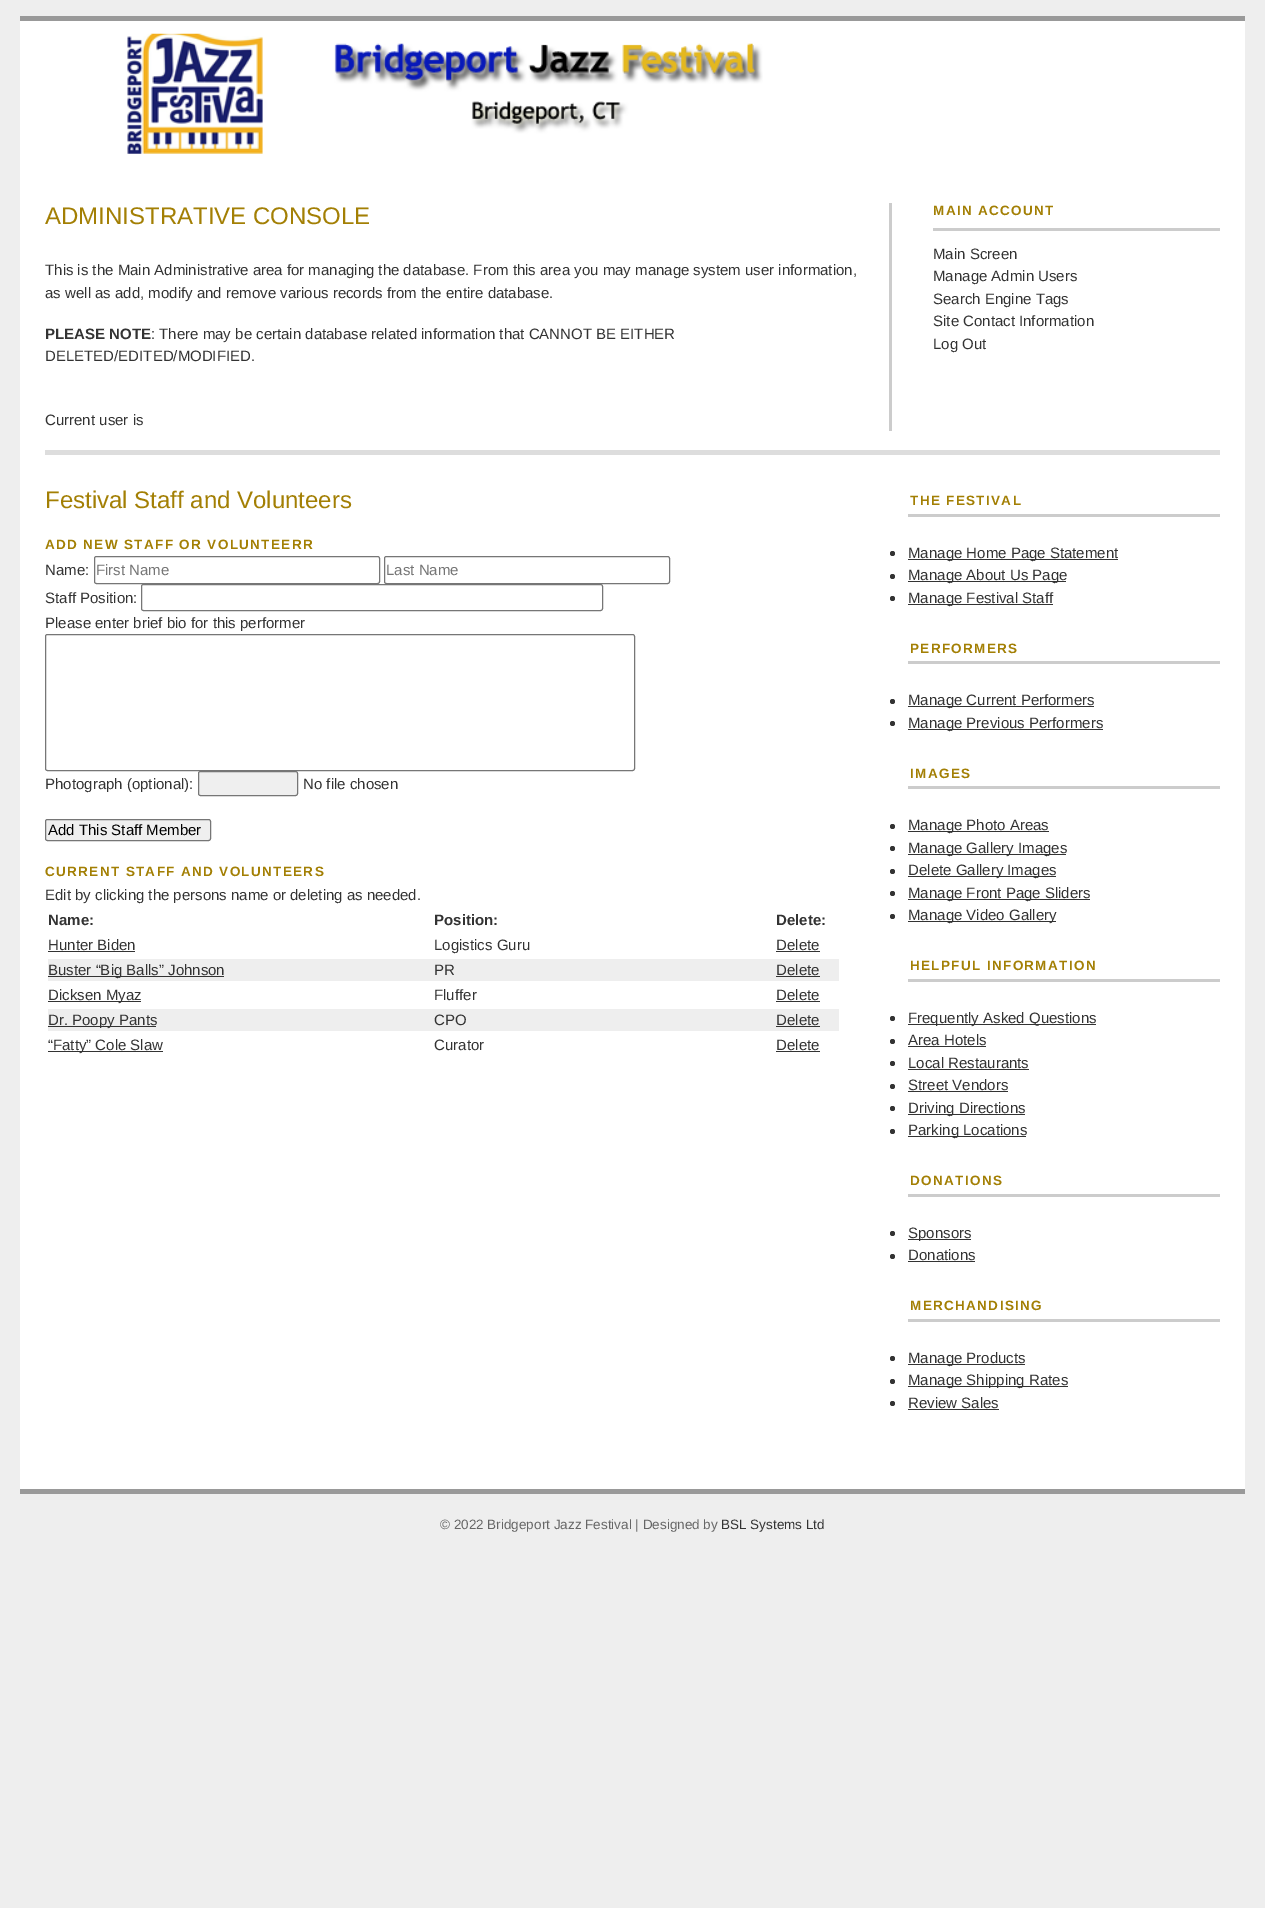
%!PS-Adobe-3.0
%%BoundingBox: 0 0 1265 1908
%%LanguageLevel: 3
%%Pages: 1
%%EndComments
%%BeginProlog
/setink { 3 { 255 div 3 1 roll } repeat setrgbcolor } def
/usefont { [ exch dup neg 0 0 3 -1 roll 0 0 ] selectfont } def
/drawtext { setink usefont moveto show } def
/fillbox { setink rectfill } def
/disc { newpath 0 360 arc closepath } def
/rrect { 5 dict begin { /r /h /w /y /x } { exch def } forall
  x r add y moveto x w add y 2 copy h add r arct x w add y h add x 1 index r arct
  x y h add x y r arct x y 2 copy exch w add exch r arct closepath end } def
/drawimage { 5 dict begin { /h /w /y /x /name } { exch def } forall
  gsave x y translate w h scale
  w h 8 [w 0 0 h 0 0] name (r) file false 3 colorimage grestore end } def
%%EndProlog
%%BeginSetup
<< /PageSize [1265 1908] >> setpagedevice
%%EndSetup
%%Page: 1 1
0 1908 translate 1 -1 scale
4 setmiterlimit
0 0 1265 1908 238 238 238 fillbox
20 21 1225 1468 255 255 255 fillbox
20 16 1225 5 153 153 153 fillbox
20 1489 1225 5 153 153 153 fillbox
(assets/img1.rgb) 127 33 636 121 drawimage
45 450 1175 5 221 221 221 fillbox
889 203 3 228 204 204 204 fillbox
(ADMINISTRATIVE CONSOLE) 45 224 /LiberationSans-Regular 24 163 127 4 drawtext
(This is the Main Administrative area for managing the database. From this area you may manage system user information,) 45 275 /LiberationSans-Regular 15 51 51 51 drawtext
(as well as add, modify and remove various records from the entire database.) 45 298 /LiberationSans-Regular 15 51 51 51 drawtext
(PLEASE NOTE) 45 339 /LiberationSans-Bold 15 51 51 51 drawtext
(: There may be certain database related information that CANNOT BE EITHER) 151 339 /LiberationSans-Regular 15 51 51 51 drawtext
(DELETED/EDITED/MODIFIED.) 45 361 /LiberationSans-Regular 15 51 51 51 drawtext
(Current user is) 45 425 /LiberationSans-Regular 15 51 51 51 drawtext
933 228 287 3 204 204 204 fillbox
/LiberationSans-Bold 13.5 usefont
163 127 4 setink
933 215 moveto 1.35 0 (MAIN ACCOUNT) ashow
(Main Screen) 933 259 /LiberationSans-Regular 15 51 51 51 drawtext
(Manage Admin Users) 933 281 /LiberationSans-Regular 15 51 51 51 drawtext
(Search Engine Tags) 933 304 /LiberationSans-Regular 15 51 51 51 drawtext
(Site Contact Information) 933 326 /LiberationSans-Regular 15 51 51 51 drawtext
(Log Out) 933 349 /LiberationSans-Regular 15 51 51 51 drawtext
(Festival Staff and Volunteers) 45 508 /LiberationSans-Regular 24 163 127 4 drawtext
/LiberationSans-Bold 13.5 usefont
45 549 moveto 1.35 0 (ADD NEW STAFF OR VOLUNTEERR) ashow
(Name:) 45 575 /LiberationSans-Regular 15 51 51 51 drawtext
118 118 118 setink
94.5 556.5 285 27 2 rrect stroke
(First Name) 96 575 /LiberationSans-Regular 15 117 117 117 drawtext
118 118 118 setink
384.5 556.5 285 27 2 rrect stroke
(Last Name) 386 575 /LiberationSans-Regular 15 117 117 117 drawtext
(Staff Position:) 45 603 /LiberationSans-Regular 15 51 51 51 drawtext
118 118 118 setink
141.5 584.5 461 26 2 rrect stroke
(Please enter brief bio for this performer) 45 628 /LiberationSans-Regular 15 51 51 51 drawtext
118 118 118 setink
45.5 634.5 589 136 2 rrect stroke
(Photograph \(optional\):) 45 789 /LiberationSans-Regular 15 51 51 51 drawtext
239 239 239 setink
198.5 771.5 99 24 2 rrect gsave fill grestore
118 118 118 setink
stroke
(No file chosen) 303 789 /LiberationSans-Regular 15 51 51 51 drawtext
239 239 239 setink
45.5 819.5 165 21 2 rrect gsave fill grestore
118 118 118 setink
stroke
(Add This Staff Member) 48 835 /LiberationSans-Regular 15 0 0 0 drawtext
/LiberationSans-Bold 13.5 usefont
163 127 4 setink
45 876 moveto 1.35 0 (CURRENT STAFF AND VOLUNTEERS) ashow
(Edit by clicking the persons name or deleting as needed.) 45 900 /LiberationSans-Regular 15 51 51 51 drawtext
(Name:) 48 925 /LiberationSans-Bold 15 51 51 51 drawtext
(Position:) 434 925 /LiberationSans-Bold 15 51 51 51 drawtext
(Delete:) 776 925 /LiberationSans-Bold 15 51 51 51 drawtext
(Hunter Biden) 48 950 /LiberationSans-Regular 15 51 51 51 drawtext
48 951 87 1 51 51 51 fillbox
(Logistics Guru) 434 950 /LiberationSans-Regular 15 51 51 51 drawtext
(Delete) 776 950 /LiberationSans-Regular 15 51 51 51 drawtext
776 951 44 1 51 51 51 fillbox
48 959 791 22 238 238 238 fillbox
48 976 176 1 51 51 51 fillbox
(Buster “Big Balls” Johnson) 48 975 /LiberationSans-Regular 15 51 51 51 drawtext
(PR) 434 975 /LiberationSans-Regular 15 51 51 51 drawtext
(Delete) 776 975 /LiberationSans-Regular 15 51 51 51 drawtext
776 976 44 1 51 51 51 fillbox
48 1001 93 1 51 51 51 fillbox
(Dicksen Myaz) 48 1000 /LiberationSans-Regular 15 51 51 51 drawtext
(Fluffer) 434 1000 /LiberationSans-Regular 15 51 51 51 drawtext
(Delete) 776 1000 /LiberationSans-Regular 15 51 51 51 drawtext
776 1001 44 1 51 51 51 fillbox
48 1009 791 22 238 238 238 fillbox
48 1026 108 1 51 51 51 fillbox
(Dr. Poopy Pants) 48 1025 /LiberationSans-Regular 15 51 51 51 drawtext
(CPO) 434 1025 /LiberationSans-Regular 15 51 51 51 drawtext
(Delete) 776 1025 /LiberationSans-Regular 15 51 51 51 drawtext
776 1026 44 1 51 51 51 fillbox
48 1051 115 1 51 51 51 fillbox
(“Fatty” Cole Slaw) 48 1050 /LiberationSans-Regular 15 51 51 51 drawtext
(Curator) 434 1050 /LiberationSans-Regular 15 51 51 51 drawtext
(Delete) 776 1050 /LiberationSans-Regular 15 51 51 51 drawtext
776 1051 44 1 51 51 51 fillbox
908 514 312 3 204 204 204 fillbox
/LiberationSans-Bold 13.5 usefont
163 127 4 setink
910 505 moveto 1.35 0 (THE FESTIVAL) ashow
51 51 51 setink
892.5 553.5 2.5 disc fill
908 559 210 1 51 51 51 fillbox
(Manage Home Page Statement) 908 558 /LiberationSans-Regular 15 51 51 51 drawtext
892.5 576.5 2.5 disc fill
908 581 158 1 51 51 51 fillbox
(Manage About Us Page) 908 580 /LiberationSans-Regular 15 51 51 51 drawtext
892.5 598.5 2.5 disc fill
908 604 145 1 51 51 51 fillbox
(Manage Festival Staff) 908 603 /LiberationSans-Regular 15 51 51 51 drawtext
908 661 312 3 204 204 204 fillbox
/LiberationSans-Bold 13.5 usefont
163 127 4 setink
910 653 moveto 1.35 0 (PERFORMERS) ashow
51 51 51 setink
892.5 701.5 2.5 disc fill
908 706 186 1 51 51 51 fillbox
(Manage Current Performers) 908 705 /LiberationSans-Regular 15 51 51 51 drawtext
892.5 723.5 2.5 disc fill
908 729 195 1 51 51 51 fillbox
(Manage Previous Performers) 908 728 /LiberationSans-Regular 15 51 51 51 drawtext
908 786 312 3 204 204 204 fillbox
/LiberationSans-Bold 13.5 usefont
163 127 4 setink
910 778 moveto 1.35 0 (IMAGES) ashow
51 51 51 setink
892.5 826.5 2.5 disc fill
908 831 141 1 51 51 51 fillbox
(Manage Photo Areas) 908 830 /LiberationSans-Regular 15 51 51 51 drawtext
892.5 848.5 2.5 disc fill
908 854 158 1 51 51 51 fillbox
(Manage Gallery Images) 908 853 /LiberationSans-Regular 15 51 51 51 drawtext
892.5 871.5 2.5 disc fill
908 876 148 1 51 51 51 fillbox
(Delete Gallery Images) 908 875 /LiberationSans-Regular 15 51 51 51 drawtext
892.5 893.5 2.5 disc fill
908 899 182 1 51 51 51 fillbox
(Manage Front Page Sliders) 908 898 /LiberationSans-Regular 15 51 51 51 drawtext
892.5 916.5 2.5 disc fill
908 921 148 1 51 51 51 fillbox
(Manage Video Gallery) 908 920 /LiberationSans-Regular 15 51 51 51 drawtext
908 979 312 3 204 204 204 fillbox
/LiberationSans-Bold 13.5 usefont
163 127 4 setink
910 970 moveto 1.35 0 (HELPFUL INFORMATION) ashow
51 51 51 setink
892.5 1018.5 2.5 disc fill
908 1024 188 1 51 51 51 fillbox
(Frequently Asked Questions) 908 1023 /LiberationSans-Regular 15 51 51 51 drawtext
892.5 1041.5 2.5 disc fill
(Area Hotels) 908 1045 /LiberationSans-Regular 15 51 51 51 drawtext
908 1046 78 1 51 51 51 fillbox
892.5 1063.5 2.5 disc fill
(Local Restaurants) 908 1068 /LiberationSans-Regular 15 51 51 51 drawtext
908 1069 121 1 51 51 51 fillbox
892.5 1086.5 2.5 disc fill
(Street Vendors) 908 1090 /LiberationSans-Regular 15 51 51 51 drawtext
908 1091 100 1 51 51 51 fillbox
892.5 1108.5 2.5 disc fill
908 1114 117 1 51 51 51 fillbox
(Driving Directions) 908 1113 /LiberationSans-Regular 15 51 51 51 drawtext
892.5 1131.5 2.5 disc fill
908 1136 118 1 51 51 51 fillbox
(Parking Locations) 908 1135 /LiberationSans-Regular 15 51 51 51 drawtext
908 1194 312 3 204 204 204 fillbox
/LiberationSans-Bold 13.5 usefont
163 127 4 setink
910 1185 moveto 1.35 0 (DONATIONS) ashow
51 51 51 setink
892.5 1233.5 2.5 disc fill
908 1239 63 1 51 51 51 fillbox
(Sponsors) 908 1238 /LiberationSans-Regular 15 51 51 51 drawtext
892.5 1256.5 2.5 disc fill
(Donations) 908 1260 /LiberationSans-Regular 15 51 51 51 drawtext
908 1261 67 1 51 51 51 fillbox
908 1319 312 3 204 204 204 fillbox
/LiberationSans-Bold 13.5 usefont
163 127 4 setink
910 1310 moveto 1.35 0 (MERCHANDISING) ashow
51 51 51 setink
892.5 1358.5 2.5 disc fill
908 1364 117 1 51 51 51 fillbox
(Manage Products) 908 1363 /LiberationSans-Regular 15 51 51 51 drawtext
892.5 1381.5 2.5 disc fill
908 1386 160 1 51 51 51 fillbox
(Manage Shipping Rates) 908 1385 /LiberationSans-Regular 15 51 51 51 drawtext
892.5 1403.5 2.5 disc fill
(Review Sales) 908 1408 /LiberationSans-Regular 15 51 51 51 drawtext
908 1409 91 1 51 51 51 fillbox
(© 2022 Bridgeport Jazz Festival | Designed by) 440 1529 /LiberationSans-Regular 13.5 102 102 102 drawtext
(BSL Systems Ltd) 721 1529 /LiberationSans-Regular 13.5 51 51 51 drawtext
showpage
%%EOF
